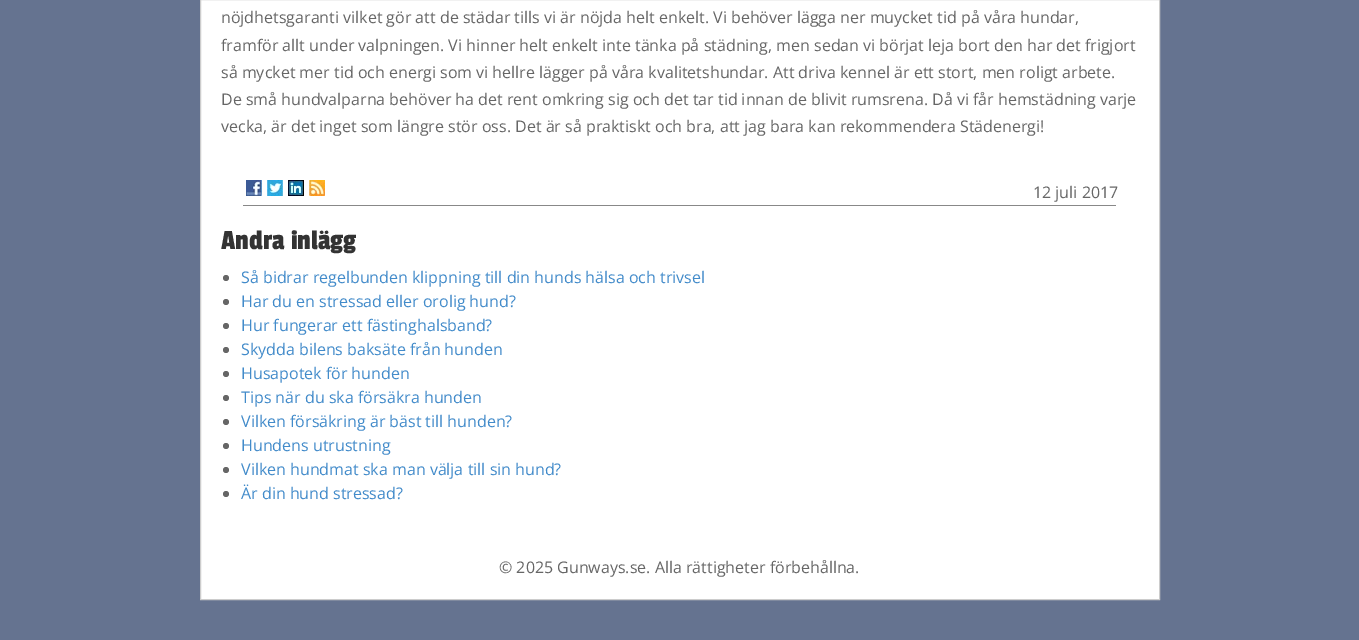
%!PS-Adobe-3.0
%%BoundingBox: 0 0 1359 640
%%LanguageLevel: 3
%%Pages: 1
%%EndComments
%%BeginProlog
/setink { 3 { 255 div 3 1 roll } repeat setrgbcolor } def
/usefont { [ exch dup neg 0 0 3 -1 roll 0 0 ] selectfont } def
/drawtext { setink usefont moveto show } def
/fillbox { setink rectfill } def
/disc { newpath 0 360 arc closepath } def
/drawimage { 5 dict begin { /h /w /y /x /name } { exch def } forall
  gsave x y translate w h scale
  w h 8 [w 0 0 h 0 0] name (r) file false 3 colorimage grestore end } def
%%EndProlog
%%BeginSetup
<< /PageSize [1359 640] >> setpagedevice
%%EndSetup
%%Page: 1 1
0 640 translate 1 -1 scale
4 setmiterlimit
0 0 1359 640 101 115 144 fillbox
255 255 255 setink
200.5 -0.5 moveto 1159.5 -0.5 lineto 1159.5 599.5 lineto 200.5 599.5 lineto closepath gsave fill grestore
204 204 204 setink
stroke
(nöjdhetsgaranti vilket gör att de städar tills vi är nöjda helt enkelt. Vi behöver lägga ner muycket tid på våra hundar,) 221 23 /OpenSans-Regular 16 102 102 102 drawtext
(framför allt under valpningen. Vi hinner helt enkelt inte tänka på städning, men sedan vi börjat leja bort den har det frigjort) 221 51 /OpenSans-Regular 16 102 102 102 drawtext
(så mycket mer tid och energi som vi hellre lägger på våra kvalitetshundar. Att driva kennel är ett stort, men roligt arbete.) 221 78 /OpenSans-Regular 16 102 102 102 drawtext
(De små hundvalparna behöver ha det rent omkring sig och det tar tid innan de blivit rumsrena. Då vi får hemstädning varje) 221 105 /OpenSans-Regular 16 102 102 102 drawtext
(vecka, är det inget som längre stör oss. Det är så praktiskt och bra, att jag bara kan rekommendera Städenergi!) 221 132 /OpenSans-Regular 16 102 102 102 drawtext
(assets/img1.rgb) 246 180 16 16 drawimage
(assets/img2.rgb) 267 180 16 16 drawimage
(assets/img3.rgb) 288 180 16 16 drawimage
(assets/img4.rgb) 309 180 16 16 drawimage
(12 juli 2017) 1033 198 /OpenSans-Regular 16 102 102 102 drawtext
243 205 873 1 136 136 136 fillbox
(Andra inlägg) 221 249 /PassionOne-Regular 29 51 51 51 drawtext
102 102 102 setink
226 278 3 disc fill
(Så bidrar regelbunden klippning till din hunds hälsa och trivsel) 241 283 /OpenSans-Regular 16 66 139 202 drawtext
102 102 102 setink
226 302 3 disc fill
(Har du en stressad eller orolig hund?) 241 307 /OpenSans-Regular 16 66 139 202 drawtext
102 102 102 setink
226 326 3 disc fill
(Hur fungerar ett fästinghalsband?) 241 331 /OpenSans-Regular 16 66 139 202 drawtext
102 102 102 setink
226 350 3 disc fill
(Skydda bilens baksäte från hunden) 241 355 /OpenSans-Regular 16 66 139 202 drawtext
102 102 102 setink
226 374 3 disc fill
(Husapotek för hunden) 241 379 /OpenSans-Regular 16 66 139 202 drawtext
102 102 102 setink
226 398 3 disc fill
(Tips när du ska försäkra hunden) 241 403 /OpenSans-Regular 16 66 139 202 drawtext
102 102 102 setink
226 422 3 disc fill
(Vilken försäkring är bäst till hunden?) 241 427 /OpenSans-Regular 16 66 139 202 drawtext
102 102 102 setink
226 446 3 disc fill
(Hundens utrustning) 241 451 /OpenSans-Regular 16 66 139 202 drawtext
102 102 102 setink
226 470 3 disc fill
(Vilken hundmat ska man välja till sin hund?) 241 475 /OpenSans-Regular 16 66 139 202 drawtext
102 102 102 setink
226 494 3 disc fill
(Är din hund stressad?) 241 499 /OpenSans-Regular 16 66 139 202 drawtext
(© 2025 Gunways.se. Alla rättigheter förbehållna.) 499 573 /OpenSans-Regular 16 102 102 102 drawtext
showpage
%%EOF
